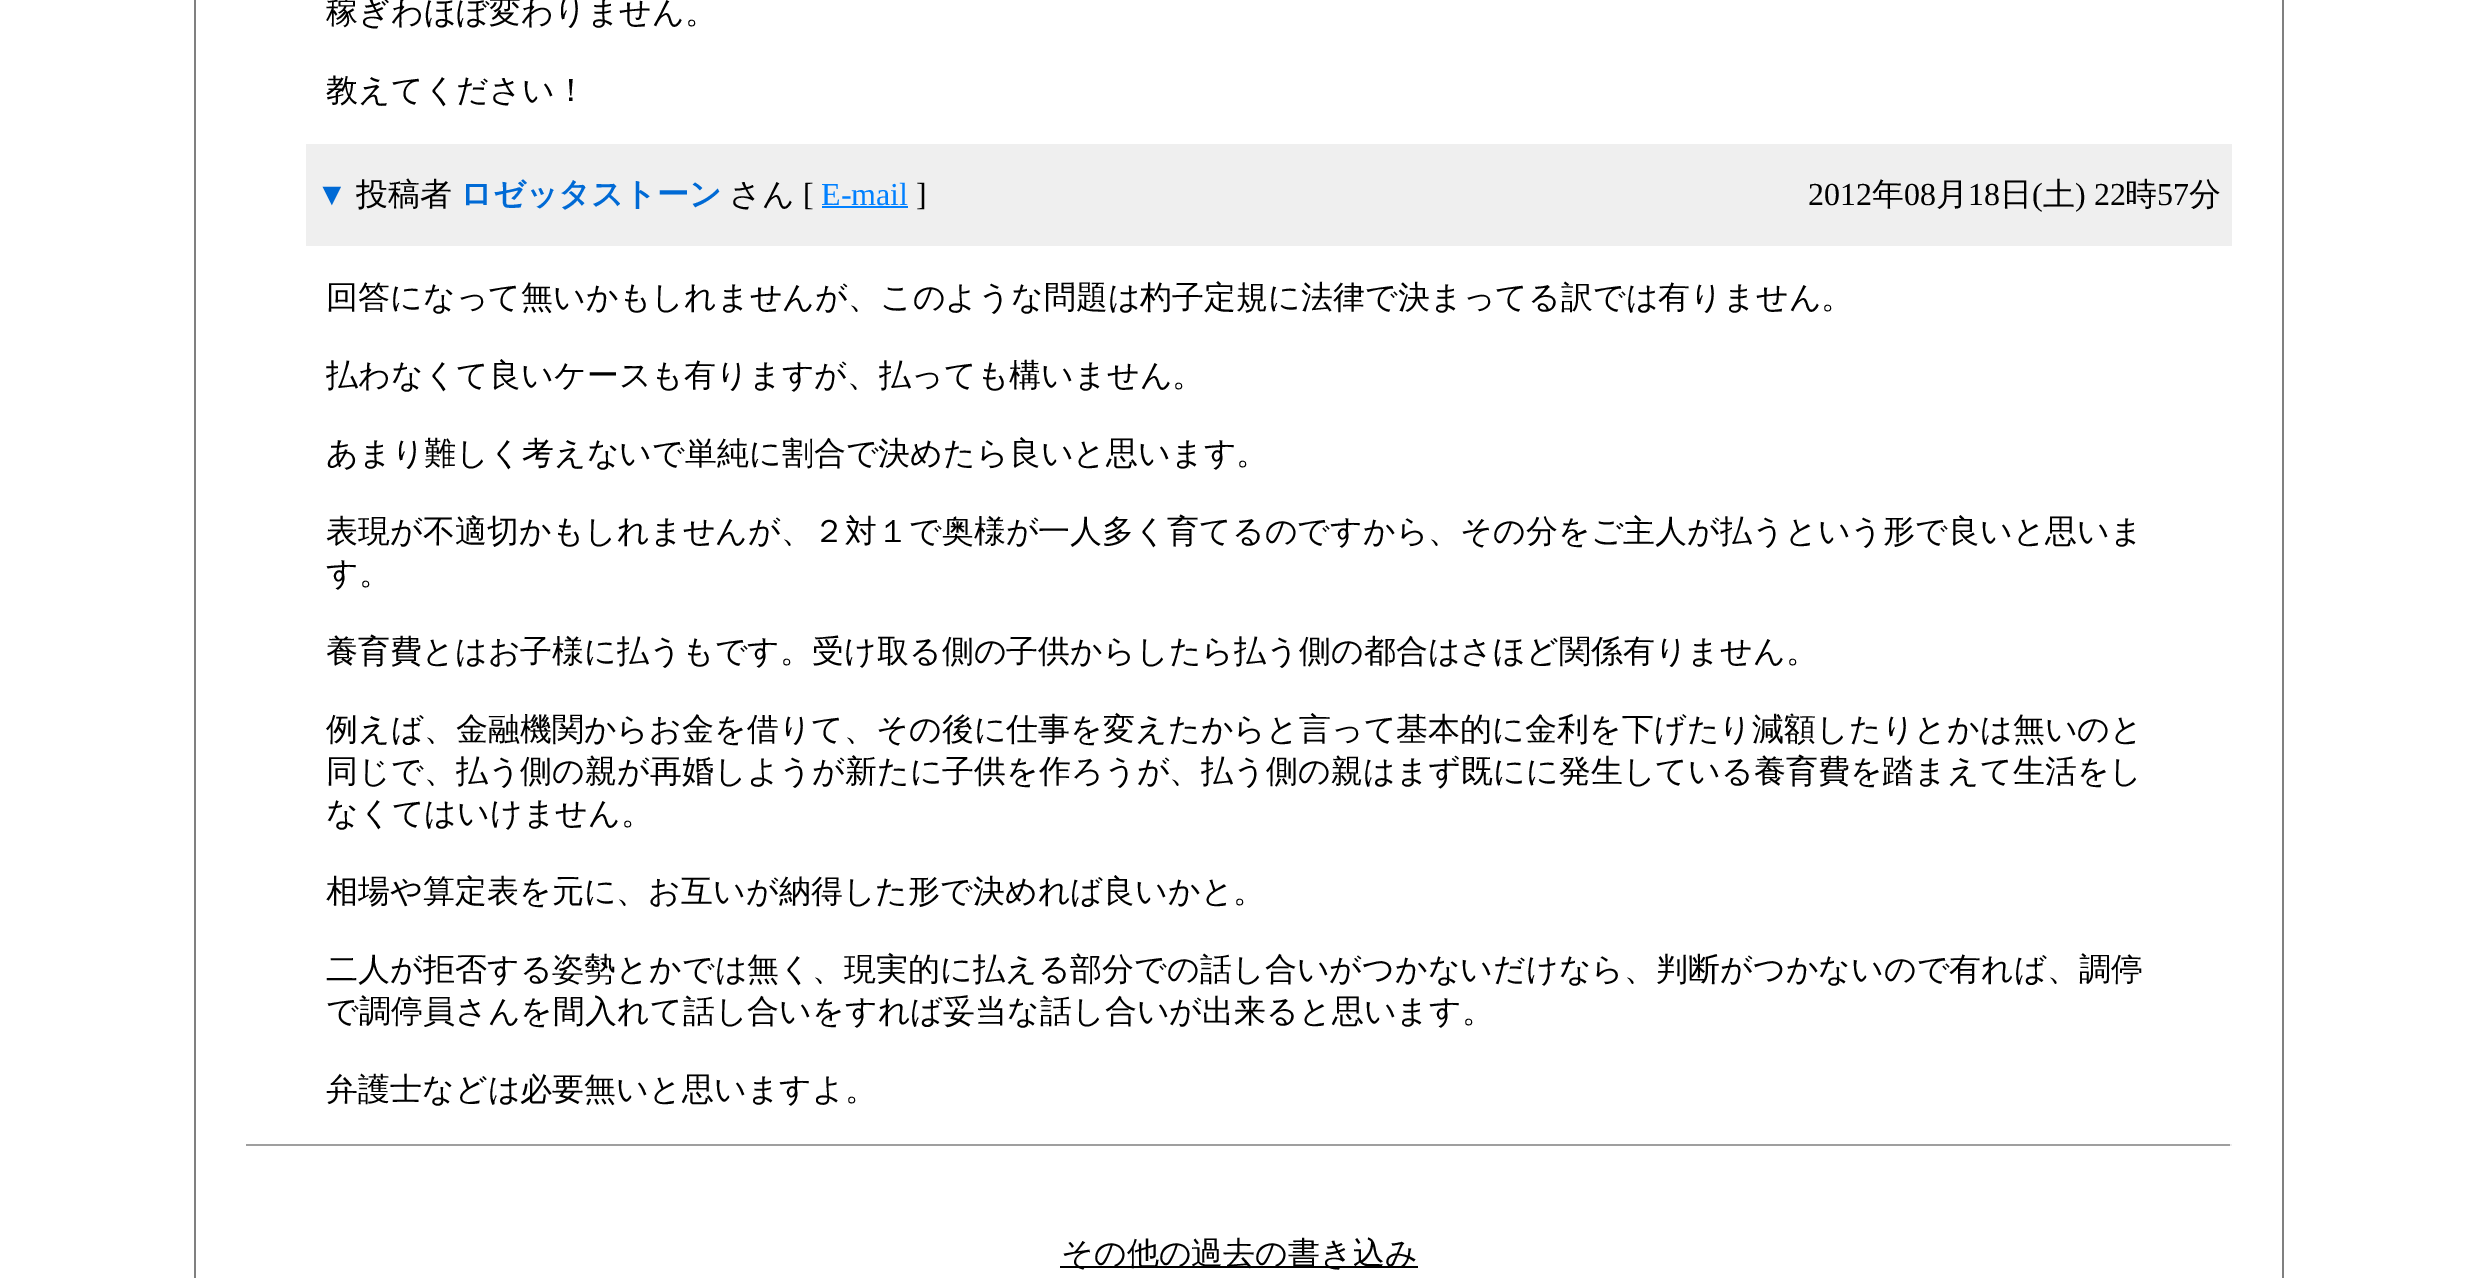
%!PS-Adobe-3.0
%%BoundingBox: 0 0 2478 1278
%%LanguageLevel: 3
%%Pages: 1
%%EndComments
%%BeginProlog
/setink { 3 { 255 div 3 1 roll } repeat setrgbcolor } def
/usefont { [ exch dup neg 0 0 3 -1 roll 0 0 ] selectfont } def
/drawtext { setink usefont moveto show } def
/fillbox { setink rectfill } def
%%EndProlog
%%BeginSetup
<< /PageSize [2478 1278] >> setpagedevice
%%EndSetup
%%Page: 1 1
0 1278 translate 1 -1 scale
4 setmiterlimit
0 0 2478 1278 255 255 255 fillbox
2282 0 2 1278 128 128 128 fillbox
194 0 2 1278 128 128 128 fillbox
(稼ぎわほぼ変わりません。) 326 23 /WenQuanYiZenHei-Medium 32 0 0 0 drawtext
(教えてください！) 326 101 /WenQuanYiZenHei-Medium 32 0 0 0 drawtext
306 144 1926 102 239 239 239 fillbox
(▼) 316 205 /LiberationSerif-Regular 32 0 106 213 drawtext
(投稿者) 356 205 /WenQuanYiZenHei-Medium 32 0 0 0 drawtext
(ロゼッタストーン) 460 205 /WenQuanYiZenHei-Bold 32 0 106 213 drawtext
(さん) 729 205 /WenQuanYiZenHei-Medium 32 0 0 0 drawtext
([) 803 205 /LiberationSerif-Regular 32 0 0 0 drawtext
(E-mail) 821 205 /LiberationSerif-Regular 32 0 128 255 drawtext
822 206 86 2 0 128 255 fillbox
(]) 916 205 /LiberationSerif-Regular 32 0 0 0 drawtext
(2012) 1808 205 /LiberationSerif-Regular 32 0 0 0 drawtext
(年) 1872 205 /WenQuanYiZenHei-Medium 32 0 0 0 drawtext
(08) 1904 205 /LiberationSerif-Regular 32 0 0 0 drawtext
(月) 1936 205 /WenQuanYiZenHei-Medium 32 0 0 0 drawtext
(18) 1968 205 /LiberationSerif-Regular 32 0 0 0 drawtext
(日) 2000 205 /WenQuanYiZenHei-Medium 32 0 0 0 drawtext
(\() 2032 205 /LiberationSerif-Regular 32 0 0 0 drawtext
(土) 2043 205 /WenQuanYiZenHei-Medium 32 0 0 0 drawtext
(\) 22) 2075 205 /LiberationSerif-Regular 32 0 0 0 drawtext
(時) 2125 205 /WenQuanYiZenHei-Medium 32 0 0 0 drawtext
(57) 2157 205 /LiberationSerif-Regular 32 0 0 0 drawtext
(分) 2189 205 /WenQuanYiZenHei-Medium 32 0 0 0 drawtext
(回答になって無いかもしれませんが、このような問題は杓子定規に法律で決まってる訳では有りません。) 326 308 /WenQuanYiZenHei-Medium 32 0 0 0 drawtext
(払わなくて良いケースも有りますが、払っても構いません。) 326 386 /WenQuanYiZenHei-Medium 32 0 0 0 drawtext
(あまり難しく考えないで単純に割合で決めたら良いと思います。) 326 464 /WenQuanYiZenHei-Medium 32 0 0 0 drawtext
(表現が不適切かもしれませんが、２対１で奥様が一人多く育てるのですから、その分をご主人が払うという形で良いと思いま) 326 542 /WenQuanYiZenHei-Medium 32 0 0 0 drawtext
(す。) 326 584 /WenQuanYiZenHei-Medium 32 0 0 0 drawtext
(養育費とはお子様に払うもです。受け取る側の子供からしたら払う側の都合はさほど関係有りません。) 326 662 /WenQuanYiZenHei-Medium 32 0 0 0 drawtext
(例えば、金融機関からお金を借りて、その後に仕事を変えたからと言って基本的に金利を下げたり減額したりとかは無いのと) 326 740 /WenQuanYiZenHei-Medium 32 0 0 0 drawtext
(同じで、払う側の親が再婚しようが新たに子供を作ろうが、払う側の親はまず既にに発生している養育費を踏まえて生活をし) 326 782 /WenQuanYiZenHei-Medium 32 0 0 0 drawtext
(なくてはいけません。) 326 824 /WenQuanYiZenHei-Medium 32 0 0 0 drawtext
(相場や算定表を元に、お互いが納得した形で決めれば良いかと。) 326 902 /WenQuanYiZenHei-Medium 32 0 0 0 drawtext
(二人が拒否する姿勢とかでは無く、現実的に払える部分での話し合いがつかないだけなら、判断がつかないので有れば、調停) 326 980 /WenQuanYiZenHei-Medium 32 0 0 0 drawtext
(で調停員さんを間入れて話し合いをすれば妥当な話し合いが出来ると思います。) 326 1022 /WenQuanYiZenHei-Medium 32 0 0 0 drawtext
(弁護士などは必要無いと思いますよ。) 326 1100 /WenQuanYiZenHei-Medium 32 0 0 0 drawtext
246 1144 1986 2 159 159 159 fillbox
2230 1144 2 2 238 238 238 fillbox
1060 1266 358 2 0 0 0 fillbox
(その他の過去の書き込み) 1061 1264 /WenQuanYiZenHei-Medium 32 0 0 0 drawtext
showpage
%%EOF
